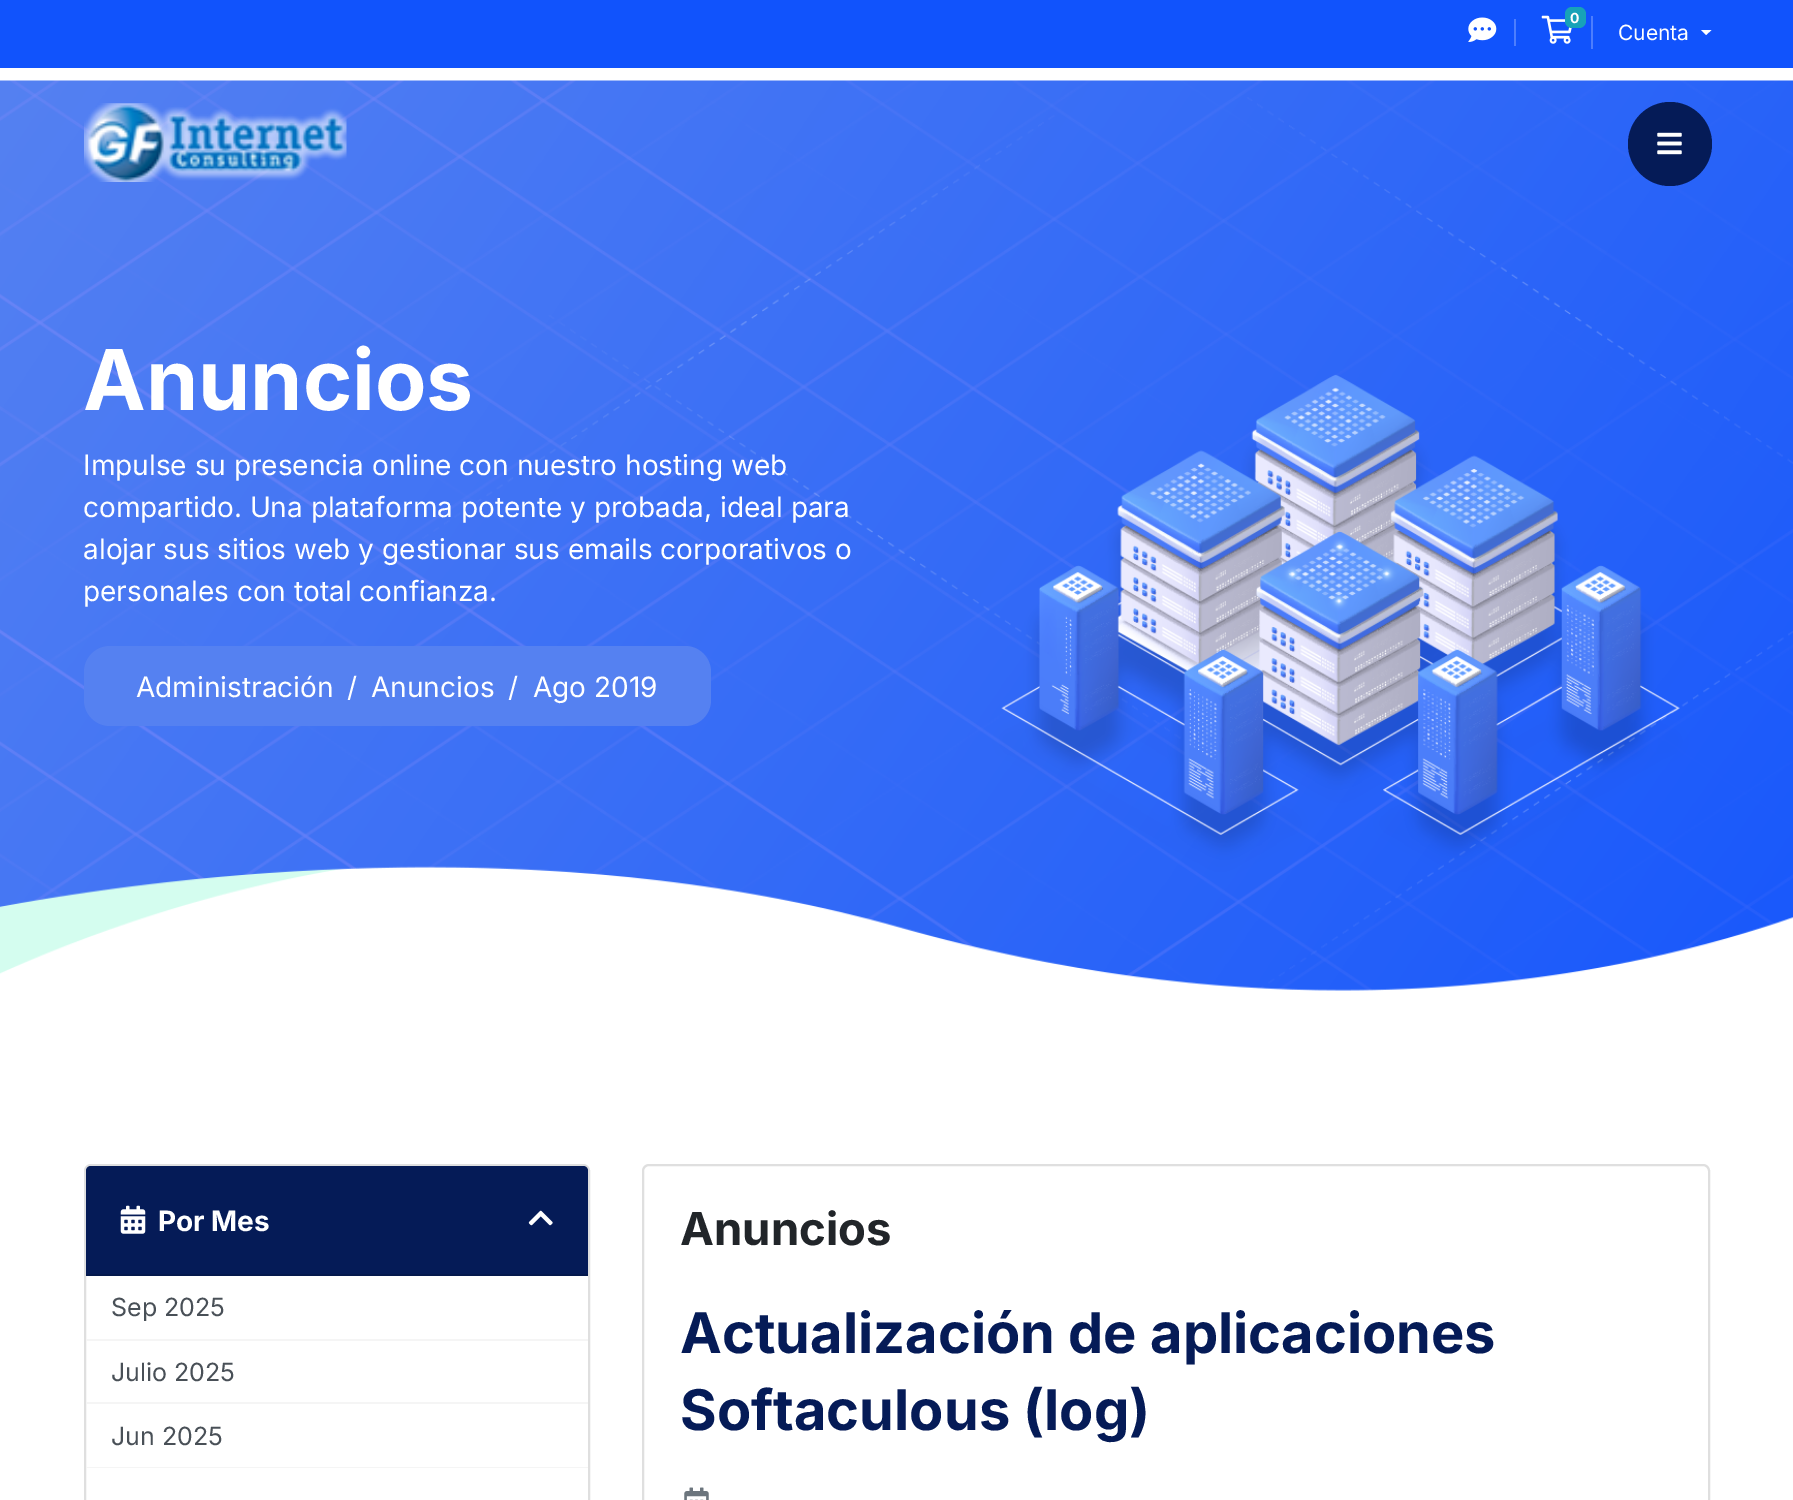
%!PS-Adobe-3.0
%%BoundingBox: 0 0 1793 1500
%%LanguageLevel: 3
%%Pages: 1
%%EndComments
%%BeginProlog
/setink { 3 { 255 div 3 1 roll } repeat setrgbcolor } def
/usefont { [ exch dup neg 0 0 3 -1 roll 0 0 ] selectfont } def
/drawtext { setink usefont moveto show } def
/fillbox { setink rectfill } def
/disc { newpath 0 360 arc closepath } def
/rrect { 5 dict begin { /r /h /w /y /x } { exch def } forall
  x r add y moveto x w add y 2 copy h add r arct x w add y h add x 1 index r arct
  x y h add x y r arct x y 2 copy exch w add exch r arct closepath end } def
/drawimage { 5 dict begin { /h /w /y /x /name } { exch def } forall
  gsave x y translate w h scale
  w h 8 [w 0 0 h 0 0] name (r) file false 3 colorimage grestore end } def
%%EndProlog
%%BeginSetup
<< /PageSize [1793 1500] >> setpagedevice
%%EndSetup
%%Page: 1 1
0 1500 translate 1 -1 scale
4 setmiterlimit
0 0 1793 1500 255 255 255 fillbox
0 0 1793 68 17 83 252 fillbox
1514 19 2 27 77 126 253 fillbox
(assets/img1.rgb) 1468 17 29 25 drawimage
1591 16 2 33 77 126 253 fillbox
(assets/img2.rgb) 1541 15 31 29 drawimage
23 162 184 setink
1565 7 21 21 7 rrect fill
(0) 1570 23 /Inter-Bold 14 255 255 255 drawtext
(Cuenta) 1618 40 /Inter-Regular 21 255 255 255 drawtext
1701 30 moveto 1711.5 30 lineto 1706 35 lineto closepath fill
(assets/img5.rgb) 0 80 1793 911 drawimage
(assets/img3.rgb) 84 103 263 79 drawimage
5 27 87 setink
1670 144 42 disc fill
(assets/img4.rgb) 1657 132 25 23 drawimage
(Anuncios) 83 410 /Inter-Bold 84 255 255 255 drawtext
(Impulse su presencia online con nuestro hosting web) 83 475 /Inter-Regular 28 255 255 255 drawtext
(compartido. Una plataforma potente y probada, ideal para) 83 517 /Inter-Regular 28 255 255 255 drawtext
(alojar sus sitios web y gestionar sus emails corporativos o) 83 559 /Inter-Regular 28 255 255 255 drawtext
(personales con total confianza.) 83 601 /Inter-Regular 28 255 255 255 drawtext
85 129 241 setink
84 646 627 80 26 rrect fill
(Administración) 136 697 /Inter-Regular 28 255 255 255 drawtext
(/) 347 697 /Inter-Regular 28 255 255 255 drawtext
(Anuncios) 371 697 /Inter-Regular 28 255 255 255 drawtext
(/) 508 697 /Inter-Regular 28 255 255 255 drawtext
(Ago 2019) 533 697 /Inter-Regular 28 255 255 255 drawtext
223 223 223 setink
2 setlinewidth
85 1165 504 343 6 rrect stroke
5 27 87 setink
91 1166 moveto 583 1166 lineto 586 1166 588 1168 588 1171 curveto 588 1276 lineto 86 1276 lineto 86 1171 lineto 86 1168 88 1166 91 1166 curveto closepath fill
86 1274 502 2 4 24 76 fillbox
(assets/img6.rgb) 120 1205 26 29 drawimage
(Por Mes) 158 1231 /Inter-Bold 28 255 255 255 drawtext
(assets/img7.rgb) 528 1210 25 16 drawimage
86 1339 502 2 245 245 245 fillbox
(Sep 2025) 111 1316 /Inter-Regular 25 73 80 87 drawtext
86 1402 502 2 245 245 245 fillbox
(Julio 2025) 111 1381 /Inter-Regular 25 73 80 87 drawtext
86 1467 502 1 245 245 245 fillbox
(Jun 2025) 111 1445 /Inter-Regular 25 73 80 87 drawtext
223 223 223 setink
643 1165 1066 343 6 rrect stroke
(Anuncios) 680 1245 /Inter-Bold 45.5 33 37 41 drawtext
(Actualización de aplicaciones) 680 1353 /Inter-Bold 56 5 27 87 drawtext
(Softaculous \(log\)) 680 1430 /Inter-Bold 56 5 27 87 drawtext
(assets/img8.rgb) 684 1487 25 13 drawimage
showpage
%%EOF
